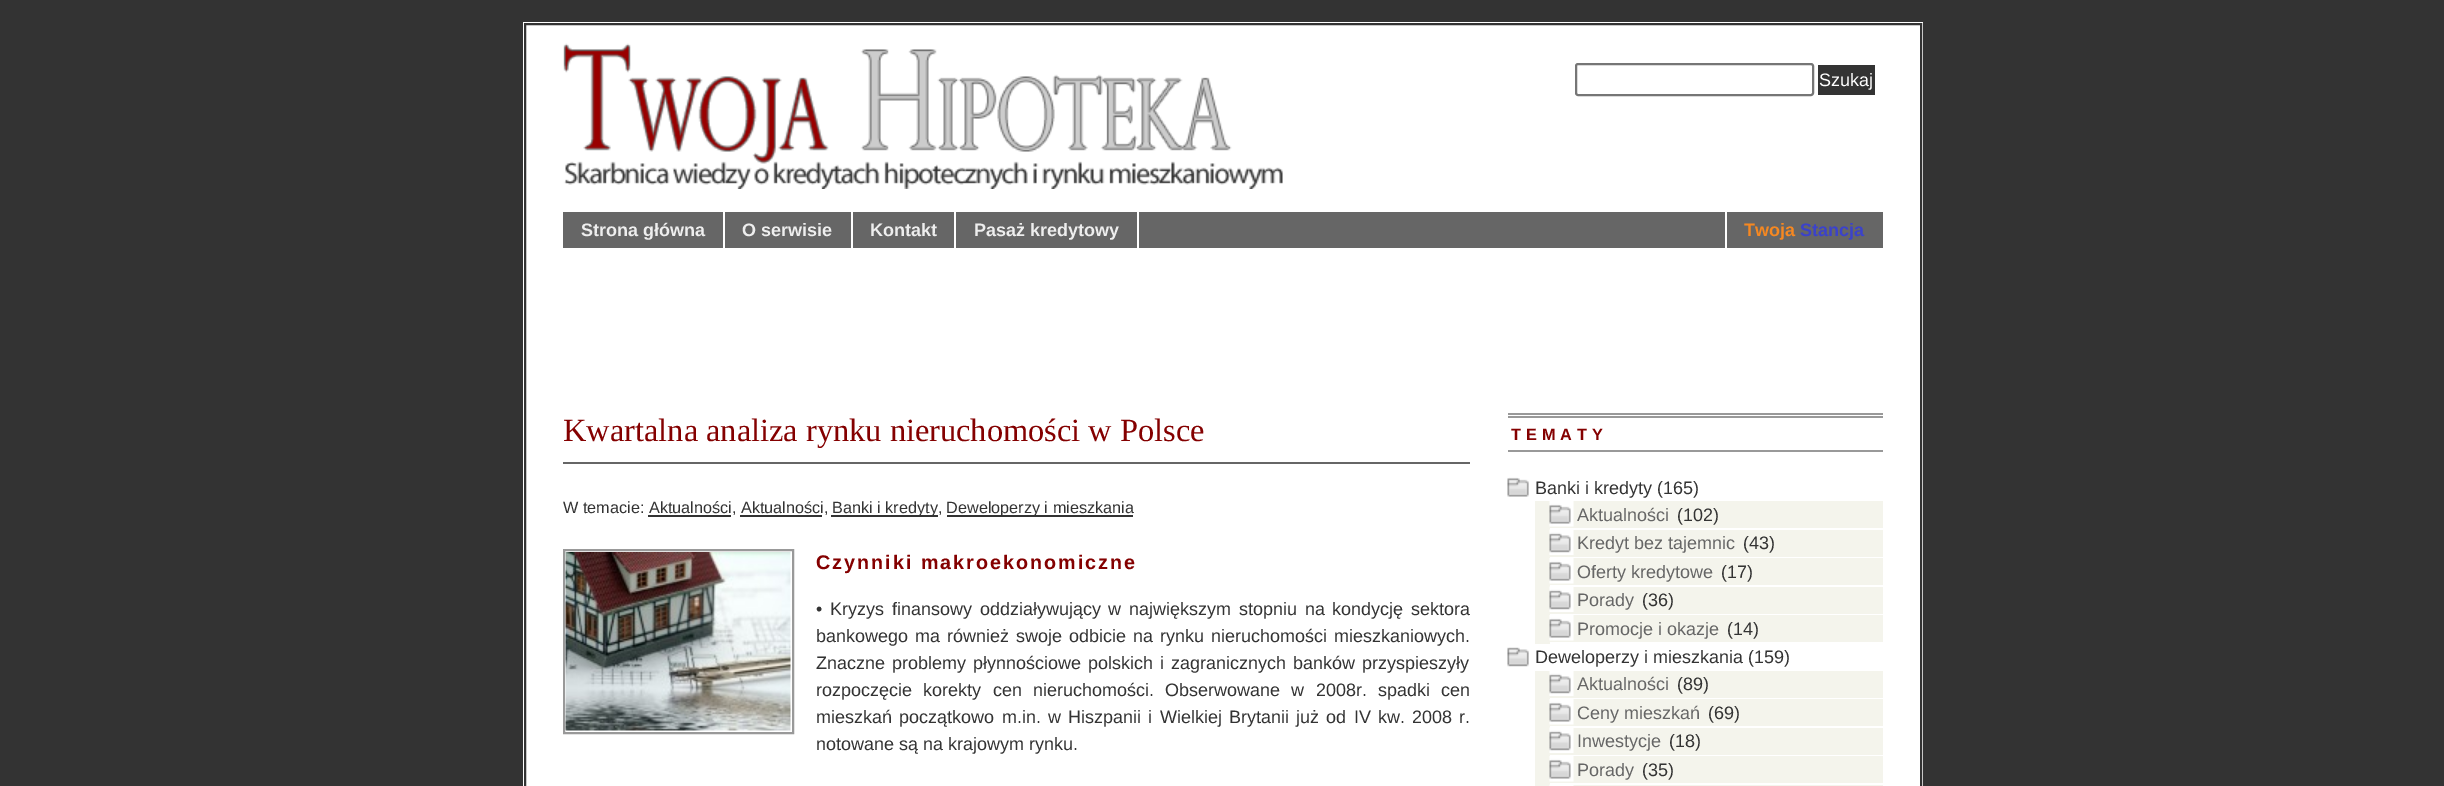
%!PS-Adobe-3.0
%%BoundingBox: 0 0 2444 786
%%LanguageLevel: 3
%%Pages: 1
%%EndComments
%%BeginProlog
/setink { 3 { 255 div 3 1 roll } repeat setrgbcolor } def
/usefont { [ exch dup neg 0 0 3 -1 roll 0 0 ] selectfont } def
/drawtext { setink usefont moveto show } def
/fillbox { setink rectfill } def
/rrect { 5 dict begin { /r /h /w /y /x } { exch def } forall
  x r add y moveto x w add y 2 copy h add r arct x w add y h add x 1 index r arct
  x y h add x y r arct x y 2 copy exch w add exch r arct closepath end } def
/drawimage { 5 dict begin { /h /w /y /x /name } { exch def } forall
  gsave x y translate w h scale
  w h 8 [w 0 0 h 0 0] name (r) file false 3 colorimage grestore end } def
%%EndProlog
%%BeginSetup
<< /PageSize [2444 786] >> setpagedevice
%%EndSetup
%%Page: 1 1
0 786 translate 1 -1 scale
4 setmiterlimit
0 0 2444 786 51 51 51 fillbox
523 22 1400 764 255 255 255 fillbox
51 51 51 setink
2 setlinewidth
525 24 1396 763 rectstroke
(assets/img1.rgb) 563 43 720 146 drawimage
118 118 118 setink
1576 64 237 31 2 rrect stroke
1818 65 57 30 51 51 51 fillbox
(Szukaj) 1819 86 /LiberationSans-Regular 18 255 255 255 drawtext
563 212 1320 36 102 102 102 fillbox
723 212 2 36 255 255 255 fillbox
(Strona główna) 581 236 /LiberationSans-Bold 18 238 238 238 drawtext
851 212 2 36 255 255 255 fillbox
(O serwisie) 742 236 /LiberationSans-Bold 18 238 238 238 drawtext
954 212 2 36 255 255 255 fillbox
(Kontakt) 870 236 /LiberationSans-Bold 18 238 238 238 drawtext
1137 212 2 36 255 255 255 fillbox
(Pasaż kredytowy) 974 236 /LiberationSans-Bold 18 238 238 238 drawtext
1725 212 2 36 255 255 255 fillbox
(Twoja) 1744 236 /LiberationSans-Bold 18 246 136 33 drawtext
(Stancja) 1800 236 /LiberationSans-Bold 18 59 66 203 drawtext
563 462 907 2 102 102 102 fillbox
(Kwartalna analiza rynku nieruchomości w Polsce) 563 441 /LiberationSerif-Regular 32.4 132 0 0 drawtext
(W temacie: Aktualności, Aktualności,) 563 513 /LiberationSans-Regular 16.25 51 51 51 drawtext
648 515 83 2 51 51 51 fillbox
740 515 82 2 51 51 51 fillbox
831 515 107 2 51 51 51 fillbox
(Banki i kredyty,) 832 513 /LiberationSans-Regular 16.25 51 51 51 drawtext
947 515 186 2 51 51 51 fillbox
(Deweloperzy i mieszkania) 946 513 /LiberationSans-Regular 16.25 51 51 51 drawtext
153 153 153 setink
564 550 229 183 rectstroke
(assets/img2.rgb) 565 552 226 179 drawimage
/LiberationSans-Bold 19.75 usefont
132 0 0 setink
816 569 moveto 2 0 (Czynniki makroekonomiczne) ashow
/LiberationSans-Regular 18 usefont
51 51 51 setink
816 615 moveto 2.75 0 32 (• Kryzys finansowy oddziaływujący w największym stopniu na kondycję sektora) widthshow
816 642 moveto 2 0 32 (bankowego ma również swoje odbicie na rynku nieruchomości mieszkaniowych.) widthshow
816 669 moveto 2 0 32 (Znaczne problemy płynnościowe polskich i zagranicznych banków przyspieszyły) widthshow
816 696 moveto 6.25 0 32 (rozpoczęcie korekty cen nieruchomości. Obserwowane w 2008r. spadki cen) widthshow
816 723 moveto 2.25 0 32 (mieszkań początkowo m.in. w Hiszpanii i Wielkiej Brytanii już od IV kw. 2008 r.) widthshow
(notowane są na krajowym rynku.) 816 750 /LiberationSans-Regular 18 51 51 51 drawtext
1508 413 375 2 153 153 153 fillbox
1508 416 375 2 153 153 153 fillbox
1508 450 375 2 153 153 153 fillbox
/LiberationSans-Bold 16.25 usefont
132 0 0 setink
1511 440 moveto 5 0 (TEMATY) ashow
(assets/img3.rgb) 1507 477 22 20 drawimage
(Banki i kredyty \(165\)) 1535 494 /LiberationSans-Regular 18 51 51 51 drawtext
1535 501 348 143 244 244 236 fillbox
(assets/img4.rgb) 1549 501 25 26 drawimage
1550 528 333 2 255 255 255 fillbox
(Aktualności) 1577 521 /LiberationSans-Regular 18 102 102 102 drawtext
(\(102\)) 1677 521 /LiberationSans-Regular 18 51 51 51 drawtext
(assets/img5.rgb) 1549 529 25 26 drawimage
1550 557 333 1 255 255 255 fillbox
(Kredyt bez tajemnic) 1577 549 /LiberationSans-Regular 18 102 102 102 drawtext
(\(43\)) 1743 549 /LiberationSans-Regular 18 51 51 51 drawtext
(assets/img4.rgb) 1549 558 25 26 drawimage
1550 585 333 2 255 255 255 fillbox
(Oferty kredytowe) 1577 578 /LiberationSans-Regular 18 102 102 102 drawtext
(\(17\)) 1721 578 /LiberationSans-Regular 18 51 51 51 drawtext
(assets/img5.rgb) 1549 586 25 26 drawimage
1550 614 333 1 255 255 255 fillbox
(Porady) 1577 606 /LiberationSans-Regular 18 102 102 102 drawtext
(\(36\)) 1642 606 /LiberationSans-Regular 18 51 51 51 drawtext
(assets/img4.rgb) 1549 615 25 26 drawimage
1550 642 333 2 255 255 255 fillbox
(Promocje i okazje) 1577 635 /LiberationSans-Regular 18 102 102 102 drawtext
(\(14\)) 1727 635 /LiberationSans-Regular 18 51 51 51 drawtext
(assets/img6.rgb) 1507 647 22 20 drawimage
(Deweloperzy i mieszkania \(159\)) 1535 663 /LiberationSans-Regular 18 51 51 51 drawtext
1535 671 348 115 244 244 236 fillbox
(assets/img7.rgb) 1549 671 25 25 drawimage
1550 698 333 1 255 255 255 fillbox
(Aktualności) 1577 690 /LiberationSans-Regular 18 102 102 102 drawtext
(\(89\)) 1677 690 /LiberationSans-Regular 18 51 51 51 drawtext
(assets/img4.rgb) 1549 699 25 26 drawimage
1550 726 333 2 255 255 255 fillbox
(Ceny mieszkań) 1577 719 /LiberationSans-Regular 18 102 102 102 drawtext
(\(69\)) 1708 719 /LiberationSans-Regular 18 51 51 51 drawtext
(assets/img5.rgb) 1549 727 25 26 drawimage
1550 755 333 1 255 255 255 fillbox
(Inwestycje) 1577 747 /LiberationSans-Regular 18 102 102 102 drawtext
(\(18\)) 1669 747 /LiberationSans-Regular 18 51 51 51 drawtext
(assets/img4.rgb) 1549 756 25 26 drawimage
1550 783 333 2 255 255 255 fillbox
(Porady) 1577 776 /LiberationSans-Regular 18 102 102 102 drawtext
(\(35\)) 1642 776 /LiberationSans-Regular 18 51 51 51 drawtext
(assets/img8.rgb) 1549 784 25 2 drawimage
showpage
%%EOF
